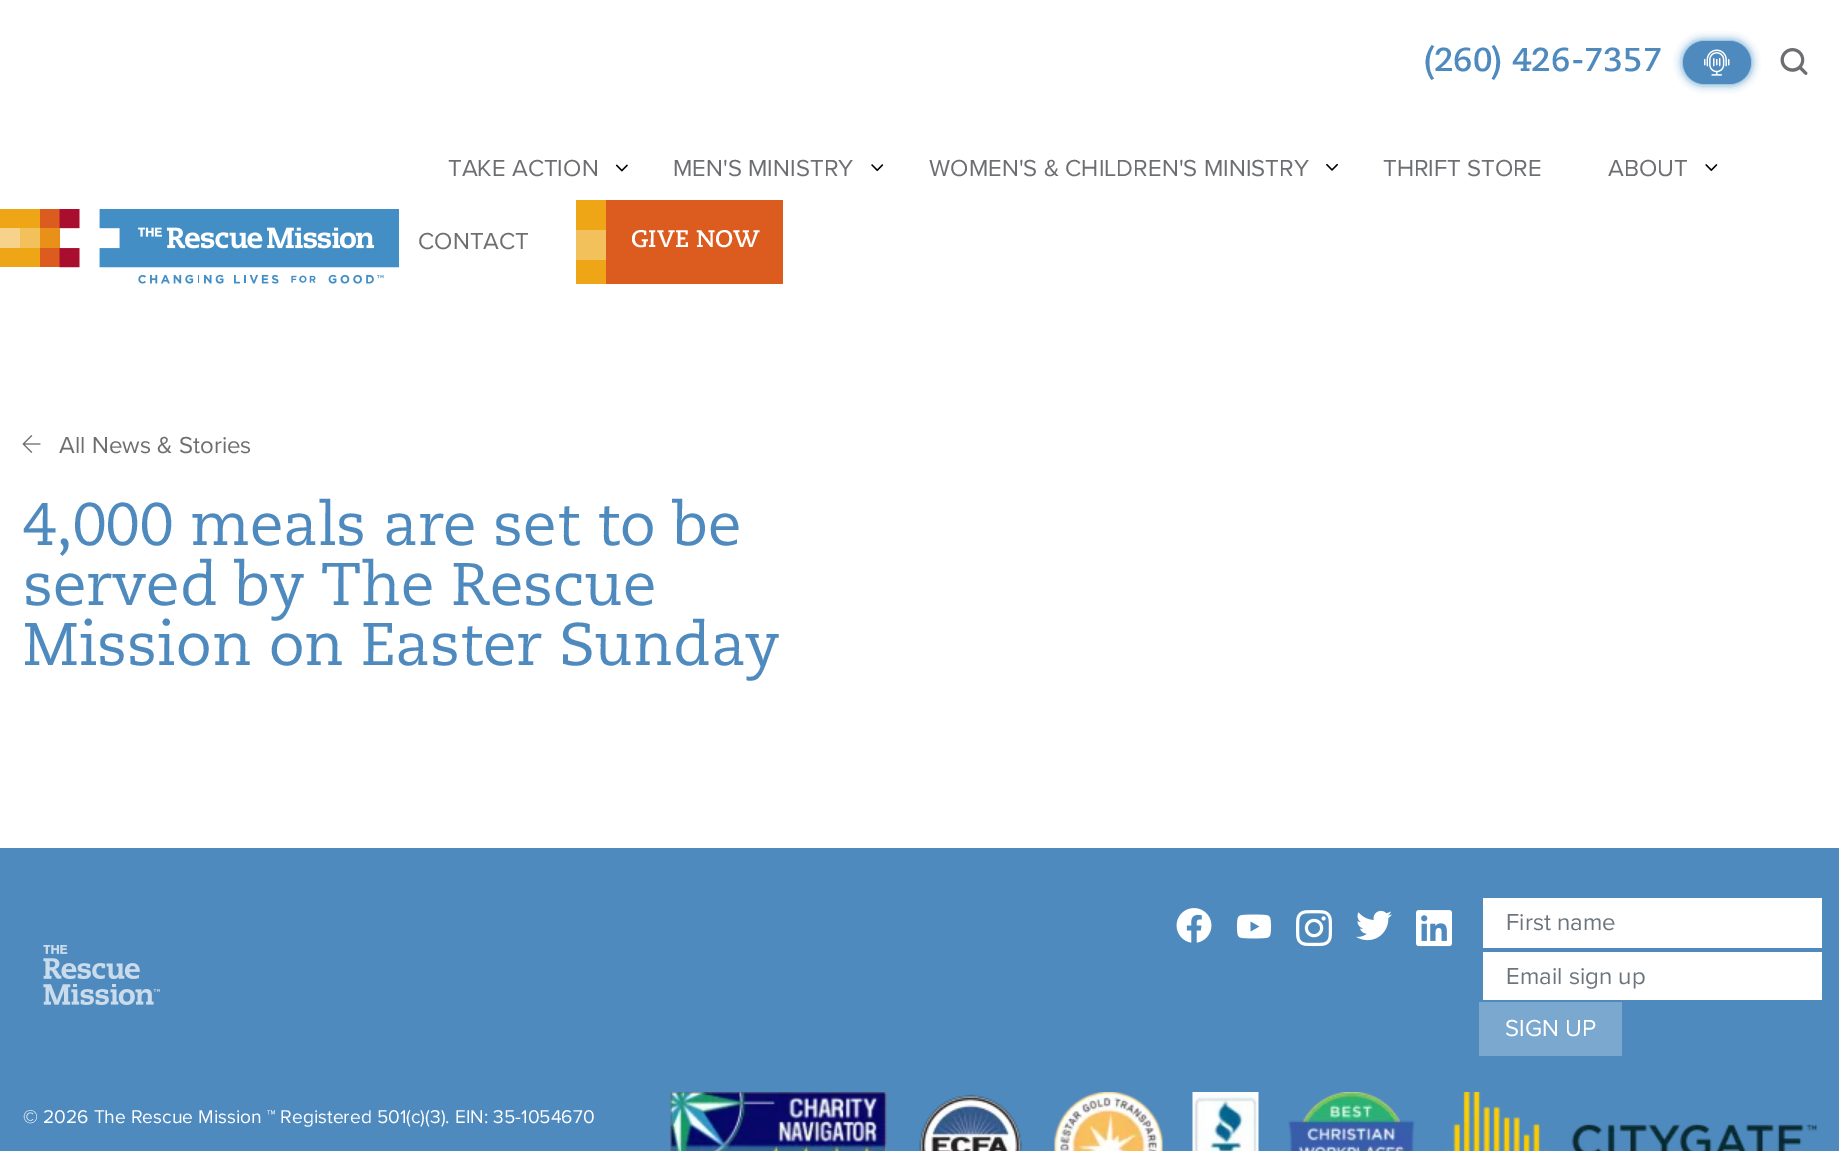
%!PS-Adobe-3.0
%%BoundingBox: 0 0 1839 1151
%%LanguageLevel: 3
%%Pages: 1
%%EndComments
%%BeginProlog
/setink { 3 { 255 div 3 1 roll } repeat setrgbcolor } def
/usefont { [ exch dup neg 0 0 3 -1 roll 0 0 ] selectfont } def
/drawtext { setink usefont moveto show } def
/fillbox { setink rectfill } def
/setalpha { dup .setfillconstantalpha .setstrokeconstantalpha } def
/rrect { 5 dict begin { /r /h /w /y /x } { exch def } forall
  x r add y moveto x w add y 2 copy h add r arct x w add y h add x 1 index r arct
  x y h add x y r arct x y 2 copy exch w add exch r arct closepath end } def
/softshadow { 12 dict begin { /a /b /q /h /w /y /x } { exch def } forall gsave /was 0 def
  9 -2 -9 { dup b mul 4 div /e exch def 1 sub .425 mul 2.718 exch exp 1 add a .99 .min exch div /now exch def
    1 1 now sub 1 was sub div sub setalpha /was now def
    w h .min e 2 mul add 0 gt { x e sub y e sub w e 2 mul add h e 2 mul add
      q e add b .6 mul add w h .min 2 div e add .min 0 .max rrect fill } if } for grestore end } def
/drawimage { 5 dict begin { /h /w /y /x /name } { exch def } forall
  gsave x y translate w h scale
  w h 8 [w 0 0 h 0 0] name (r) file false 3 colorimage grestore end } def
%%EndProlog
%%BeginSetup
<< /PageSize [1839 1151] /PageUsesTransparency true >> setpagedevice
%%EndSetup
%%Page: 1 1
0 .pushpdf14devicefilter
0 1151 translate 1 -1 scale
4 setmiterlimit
0 0 1839 1151 255 255 255 fillbox
(assets/img1.rgb) 0 209 399 75 drawimage
(\(260\) 426-7357) 1424 71 /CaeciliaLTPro-Bold 33 78 138 190 drawtext
66 142 197 setink
1683 41 68 43 21.5 4.5 1 softshadow
78 138 190 setink
1683 41 68 43 21.5 rrect fill
(assets/img2.rgb) 1704 49 26 27 drawimage
(assets/img3.rgb) 1780 48 28 27 drawimage
(TAKE ACTION) 448 176 /ProximaNova-Regular 24 109 110 113 drawtext
(assets/img4.rgb) 615 164 13 8 drawimage
(MEN'S MINISTRY) 673 176 /ProximaNova-Regular 24 109 110 113 drawtext
(assets/img5.rgb) 871 164 13 8 drawimage
(WOMEN'S & CHILDREN'S MINISTRY) 929 176 /ProximaNova-Regular 24 109 110 113 drawtext
(assets/img6.rgb) 1326 163 12 8 drawimage
(THRIFT STORE) 1383 176 /ProximaNova-Regular 24 109 110 113 drawtext
(ABOUT) 1608 176 /ProximaNova-Regular 24 109 110 113 drawtext
(assets/img7.rgb) 1705 164 13 7 drawimage
(CONTACT) 418 249 /ProximaNova-Regular 24 109 110 113 drawtext
606 200 177 84 219 92 30 fillbox
576 200 30 84 238 166 22 fillbox
576 230 30 30 243 193 92 fillbox
(GIVE NOW) 631 247 /CaeciliaLTPro-Bold 24 255 255 255 drawtext
(assets/img8.rgb) 22 435 19 18 drawimage
(All News & Stories) 59 453 /ProximaNova-Regular 24 109 110 113 drawtext
(4,000 meals are set to be) 23 545 /CaeciliaLTPro-Regular 60 78 138 190 drawtext
(served by The Rescue) 23 605 /CaeciliaLTPro-Regular 60 78 138 190 drawtext
(Mission on Easter Sunday) 23 665 /CaeciliaLTPro-Regular 60 78 138 190 drawtext
0 848 1839 303 78 138 190 fillbox
(assets/img9.rgb) 43 945 117 60 drawimage
(assets/img10.rgb) 1176 908 36 35 drawimage
(assets/img11.rgb) 1236 914 36 25 drawimage
(assets/img12.rgb) 1296 910 36 37 drawimage
(assets/img13.rgb) 1356 910 36 31 drawimage
(assets/img14.rgb) 1416 910 36 37 drawimage
1483 898 339 50 255 255 255 fillbox
(First name) 1506 930 /ProximaNova-Regular 24 108 117 125 drawtext
1483 952 339 48 255 255 255 fillbox
(Email sign up) 1506 984 /ProximaNova-Regular 24 108 117 125 drawtext
1479 1002 143 54 123 168 206 fillbox
(SIGN UP) 1505 1036 /ProximaNova-Regular 24 255 255 255 drawtext
(© 2026 The Rescue Mission ™ Registered 501\(c\)\(3\). EIN: 35-1054670) 23 1123 /ProximaNova-Regular 19.2 255 255 255 drawtext
(assets/img15.rgb) 670 1092 217 59 drawimage
(assets/img16.rgb) 919 1094 103 57 drawimage
(assets/img17.rgb) 1054 1092 109 59 drawimage
(assets/img18.rgb) 1192 1092 67 59 drawimage
(assets/img19.rgb) 1288 1092 127 59 drawimage
(assets/img20.rgb) 1444 1092 373 59 drawimage
.poppdf14devicefilter showpage
%%EOF
